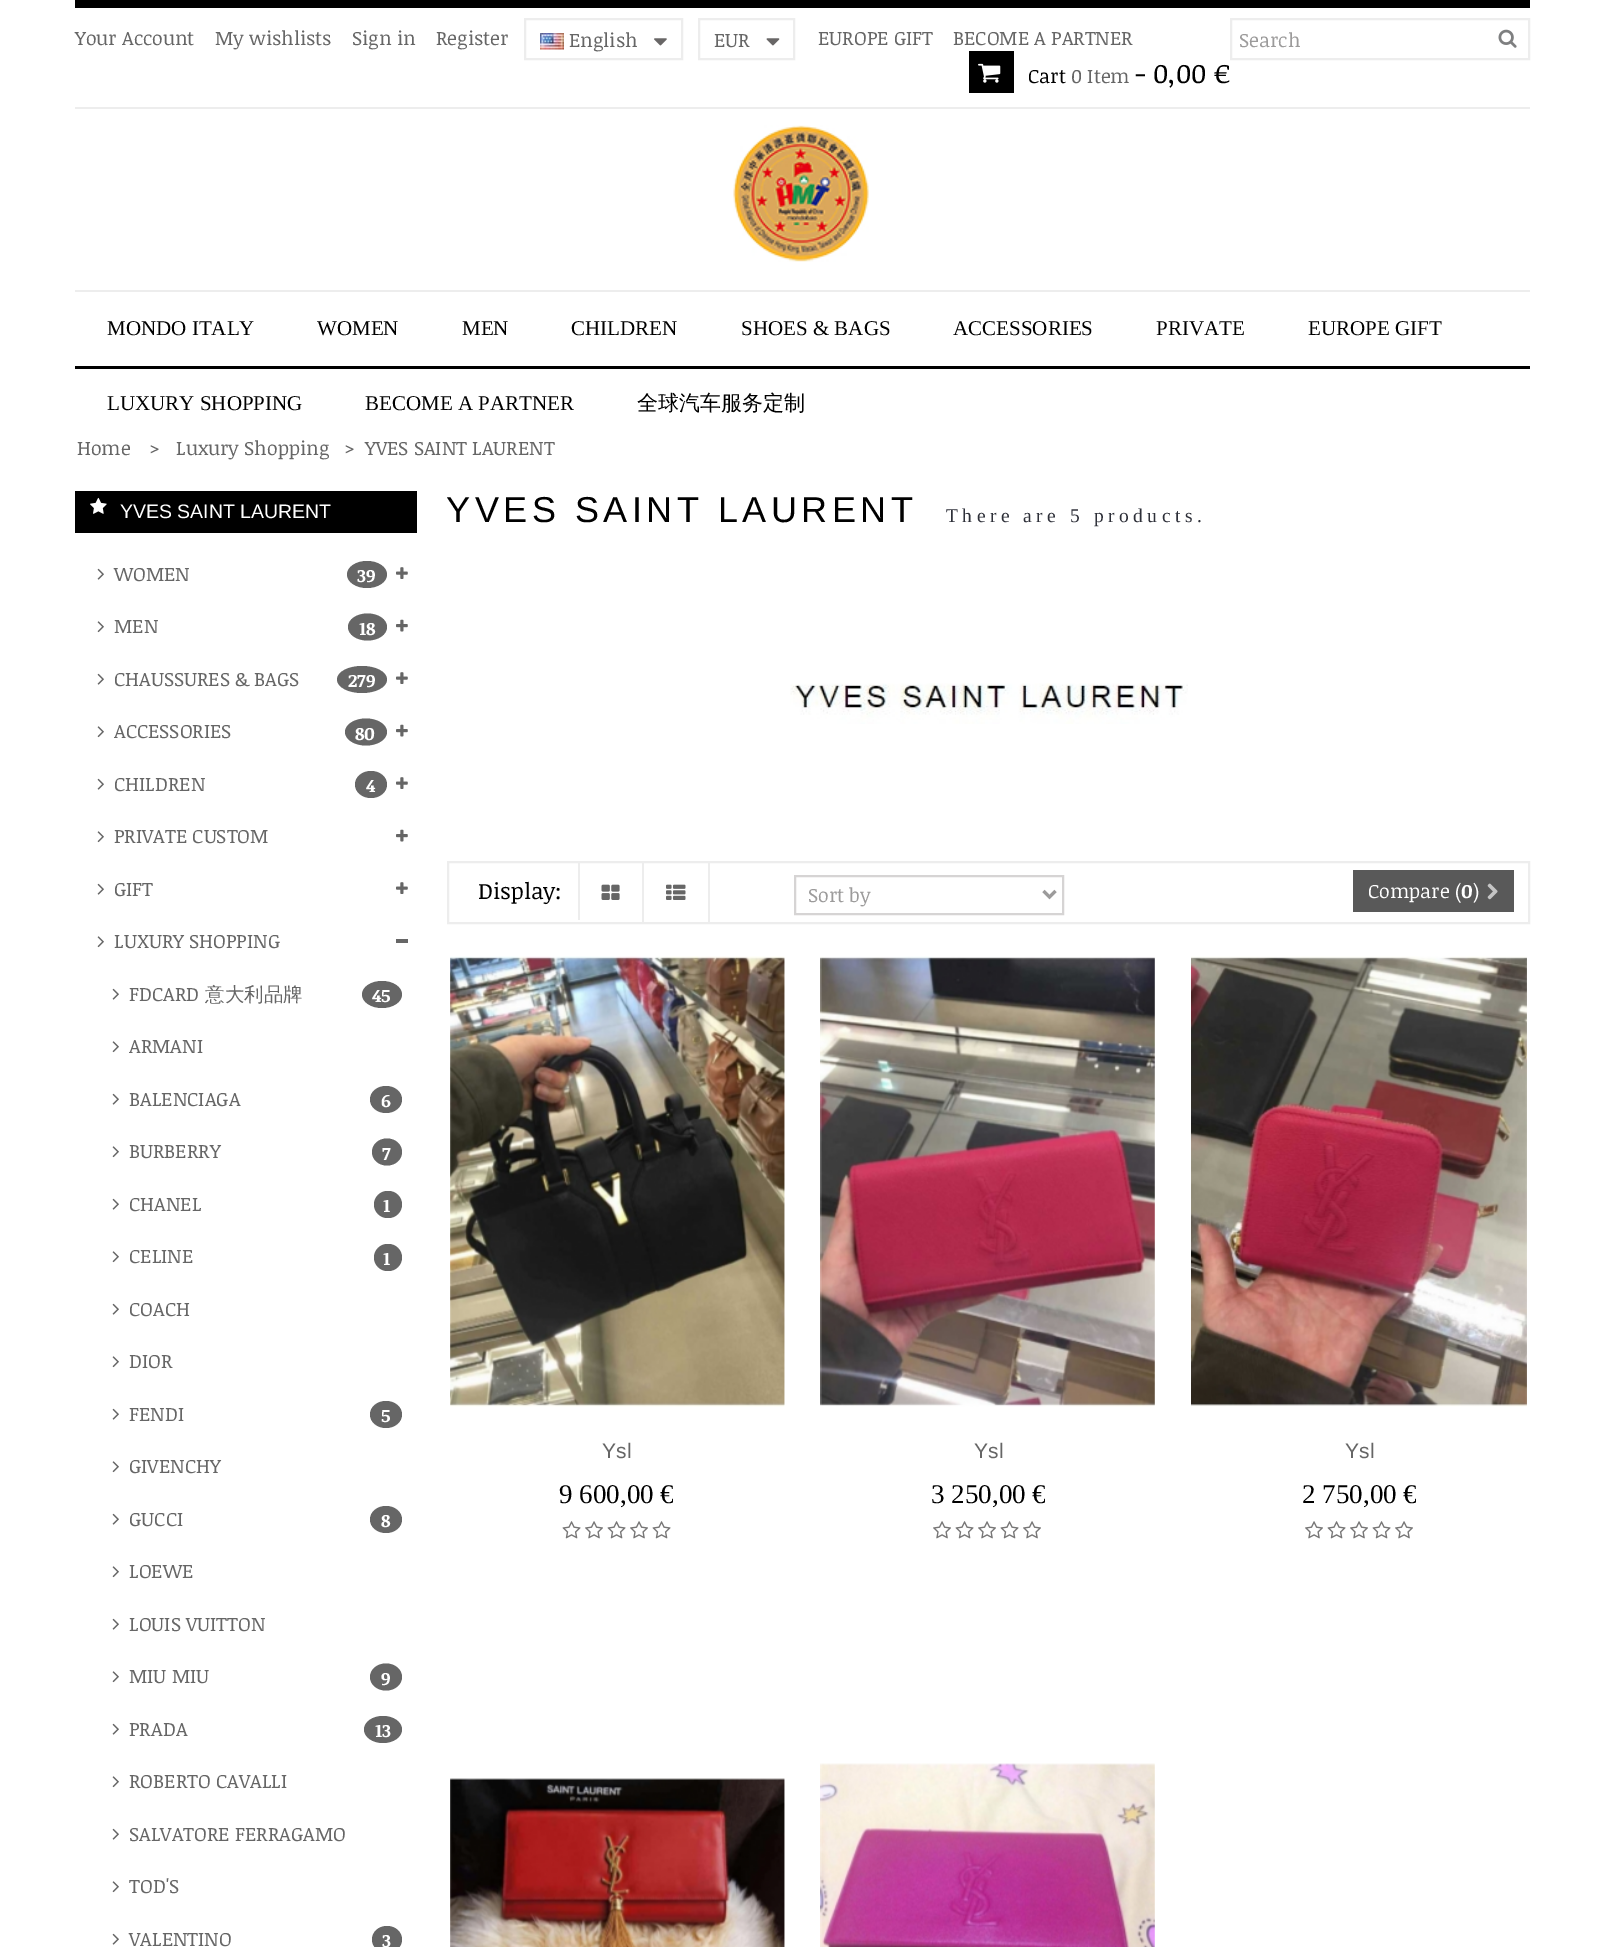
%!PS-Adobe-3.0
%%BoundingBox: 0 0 1604 1947
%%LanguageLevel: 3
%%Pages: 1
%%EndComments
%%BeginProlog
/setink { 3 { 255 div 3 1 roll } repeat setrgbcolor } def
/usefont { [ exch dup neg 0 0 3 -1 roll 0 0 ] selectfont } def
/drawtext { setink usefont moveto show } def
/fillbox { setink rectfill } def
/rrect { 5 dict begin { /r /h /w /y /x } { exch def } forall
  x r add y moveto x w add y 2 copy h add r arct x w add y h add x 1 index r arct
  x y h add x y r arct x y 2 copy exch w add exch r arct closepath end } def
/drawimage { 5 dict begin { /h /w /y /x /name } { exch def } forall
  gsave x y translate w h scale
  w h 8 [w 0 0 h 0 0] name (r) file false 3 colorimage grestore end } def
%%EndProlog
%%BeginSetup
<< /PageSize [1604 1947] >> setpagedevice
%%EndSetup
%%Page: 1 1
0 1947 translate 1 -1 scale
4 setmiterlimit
0 0 1604 1947 255 255 255 fillbox
75 0 1455 8 0 0 0 fillbox
75 107 1455 2 237 237 237 fillbox
(Your Account) 75 45 /NoticiaText-Regular 19.5 102 102 102 drawtext
(My wishlists) 215 45 /NoticiaText-Regular 19.5 102 102 102 drawtext
(Sign in) 352 45 /NoticiaText-Regular 19.5 102 102 102 drawtext
(Register) 436 45 /NoticiaText-Regular 19.5 102 102 102 drawtext
237 237 237 setink
2 setlinewidth
525 19 157 40 rectstroke
(assets/img1.rgb) 540 33 24 17 drawimage
(English) 569 47 /NoticiaText-Regular 19.5 102 102 102 drawtext
(assets/img2.rgb) 654 38 13 8 drawimage
237 237 237 setink
699 19 95 40 rectstroke
(EUR) 714 47 /NoticiaText-Regular 19.5 102 102 102 drawtext
(assets/img3.rgb) 766 38 14 8 drawimage
(EUROPE GIFT) 818 45 /NoticiaText-Regular 19.5 102 102 102 drawtext
(BECOME A PARTNER) 953 45 /NoticiaText-Regular 19.5 102 102 102 drawtext
237 237 237 setink
1231 19 298 40 rectstroke
(Search) 1239 47 /NoticiaText-Regular 19.5 156 155 155 drawtext
(assets/img4.rgb) 1498 29 19 19 drawimage
969 51 45 42 0 0 0 fillbox
(assets/img5.rgb) 978 63 23 20 drawimage
(Cart) 1028 83 /NoticiaText-Regular 19.5 0 0 0 drawtext
(0 Item) 1071 83 /NoticiaText-Regular 19.5 102 102 102 drawtext
(- 0,00 €) 1135 83 /NoticiaText-Regular 27 0 0 0 drawtext
(assets/img6.rgb) 733 125 136 137 drawimage
75 290 1455 2 237 237 237 fillbox
75 366 1455 3 0 0 0 fillbox
(MONDO ITALY) 107 335 /LiberationSerif-Regular 21 0 0 0 drawtext
(WOMEN) 317 335 /LiberationSerif-Regular 21 0 0 0 drawtext
(MEN) 462 335 /LiberationSerif-Regular 21 0 0 0 drawtext
(CHILDREN) 571 335 /LiberationSerif-Regular 21 0 0 0 drawtext
(SHOES & BAGS) 741 335 /LiberationSerif-Regular 21 0 0 0 drawtext
(ACCESSORIES) 953 335 /LiberationSerif-Regular 21 0 0 0 drawtext
(PRIVATE) 1156 335 /LiberationSerif-Regular 21 0 0 0 drawtext
(EUROPE GIFT) 1308 335 /LiberationSerif-Regular 21 0 0 0 drawtext
(LUXURY SHOPPING) 107 410 /LiberationSerif-Regular 21 0 0 0 drawtext
(BECOME A PARTNER) 365 410 /LiberationSerif-Regular 21 0 0 0 drawtext
(全球汽车服务定制) 637 410 /WenQuanYiZenHei-Medium 21 0 0 0 drawtext
(Home) 77 455 /NoticiaText-Regular 19.5 102 102 102 drawtext
(>) 149 455 /NoticiaText-Regular 19.5 102 102 102 drawtext
(Luxury Shopping) 176 455 /NoticiaText-Regular 19.5 102 102 102 drawtext
(>) 344 455 /NoticiaText-Regular 19.5 102 102 102 drawtext
(YVES SAINT LAURENT) 365 455 /NoticiaText-Regular 19.5 102 102 102 drawtext
75 491 342 42 0 0 0 fillbox
(assets/img7.rgb) 90 497 17 17 drawimage
(YVES SAINT LAURENT) 120 518 /LiberationSans-Regular 19.5 255 255 255 drawtext
(assets/img8.rgb) 97 568 7 12 drawimage
(WOMEN) 114 581 /NoticiaText-Regular 19.5 102 102 102 drawtext
367 561 moveto 378 561 387 567 387 574.5 curveto 387 582 378 588 367 588 curveto 356 588 347 582 347 574.5 curveto 347 567 356 561 367 561 curveto closepath fill
(39) 357 582 /NoticiaText-Bold 18 255 255 255 drawtext
(assets/img9.rgb) 396 567 12 12 drawimage
(assets/img10.rgb) 97 621 7 12 drawimage
(MEN) 114 633 /NoticiaText-Regular 19.5 102 102 102 drawtext
367.5 613.5 moveto 378.5 613.5 387 619.5 387 627 curveto 387 634.5 378.5 640.5 367.5 640.5 curveto 356.5 640.5 348 634.5 348 627 curveto 348 619.5 356.5 613.5 367.5 613.5 curveto closepath fill
(18) 359 635 /NoticiaText-Bold 18 255 255 255 drawtext
(assets/img11.rgb) 396 619 12 13 drawimage
(assets/img8.rgb) 97 673 7 12 drawimage
(CHAUSSURES & BAGS) 114 686 /NoticiaText-Regular 19.5 102 102 102 drawtext
362 666 moveto 376 666 387 672 387 679.5 curveto 387 687 376 693 362 693 curveto 348 693 337 687 337 679.5 curveto 337 672 348 666 362 666 curveto closepath fill
(279) 348 687 /NoticiaText-Bold 18 255 255 255 drawtext
(assets/img9.rgb) 396 672 12 12 drawimage
(assets/img10.rgb) 97 726 7 12 drawimage
(ACCESSORIES) 114 738 /NoticiaText-Regular 19.5 102 102 102 drawtext
366 718.5 moveto 377.5 718.5 387 724.5 387 732 curveto 387 739.5 377.5 745.5 366 745.5 curveto 354.5 745.5 345 739.5 345 732 curveto 345 724.5 354.5 718.5 366 718.5 curveto closepath fill
(80) 355 740 /NoticiaText-Bold 18 255 255 255 drawtext
(assets/img11.rgb) 396 724 12 13 drawimage
(assets/img8.rgb) 97 778 7 12 drawimage
(CHILDREN) 114 791 /NoticiaText-Regular 19.5 102 102 102 drawtext
371 771 moveto 380 771 387 777 387 784.5 curveto 387 792 380 798 371 798 curveto 362 798 355 792 355 784.5 curveto 355 777 362 771 371 771 curveto closepath fill
(4) 366 792 /NoticiaText-Bold 18 255 255 255 drawtext
(assets/img9.rgb) 396 777 12 12 drawimage
(assets/img10.rgb) 97 831 7 12 drawimage
(PRIVATE CUSTOM) 114 843 /NoticiaText-Regular 19.5 102 102 102 drawtext
(assets/img11.rgb) 396 829 12 13 drawimage
(assets/img8.rgb) 97 883 7 12 drawimage
(GIFT) 114 896 /NoticiaText-Regular 19.5 102 102 102 drawtext
(assets/img9.rgb) 396 882 12 12 drawimage
(assets/img10.rgb) 97 936 7 12 drawimage
(LUXURY SHOPPING) 114 948 /NoticiaText-Regular 19.5 102 102 102 drawtext
396 939 12 4 102 102 102 fillbox
(assets/img8.rgb) 112 988 7 12 drawimage
(FDCARD) 129 1001 /NoticiaText-Regular 19.5 102 102 102 drawtext
(意大利品牌) 205 1001 /WenQuanYiZenHei-Medium 19.5 102 102 102 drawtext
382 981 moveto 393 981 402 987 402 994.5 curveto 402 1002 393 1008 382 1008 curveto 371 1008 362 1002 362 994.5 curveto 362 987 371 981 382 981 curveto closepath fill
(45) 372 1002 /NoticiaText-Bold 18 255 255 255 drawtext
(assets/img10.rgb) 112 1041 7 12 drawimage
(ARMANI) 129 1053 /NoticiaText-Regular 19.5 102 102 102 drawtext
(assets/img8.rgb) 112 1093 7 12 drawimage
(BALENCIAGA) 129 1106 /NoticiaText-Regular 19.5 102 102 102 drawtext
386 1086 moveto 395 1086 402 1092 402 1099.5 curveto 402 1107 395 1113 386 1113 curveto 377 1113 370 1107 370 1099.5 curveto 370 1092 377 1086 386 1086 curveto closepath fill
(6) 381 1107 /NoticiaText-Bold 18 255 255 255 drawtext
(assets/img10.rgb) 112 1146 7 12 drawimage
(BURBERRY) 129 1158 /NoticiaText-Regular 19.5 102 102 102 drawtext
387 1138.5 moveto 395.5 1138.5 402 1144.5 402 1152 curveto 402 1159.5 395.5 1165.5 387 1165.5 curveto 378.5 1165.5 372 1159.5 372 1152 curveto 372 1144.5 378.5 1138.5 387 1138.5 curveto closepath fill
(7) 382 1160 /NoticiaText-Bold 18 255 255 255 drawtext
(assets/img8.rgb) 112 1198 7 12 drawimage
(CHANEL) 129 1211 /NoticiaText-Regular 19.5 102 102 102 drawtext
374 1191 28 27 13.5 rrect fill
(1) 383 1212 /NoticiaText-Bold 18 255 255 255 drawtext
(assets/img10.rgb) 112 1251 7 12 drawimage
(CELINE) 129 1263 /NoticiaText-Regular 19.5 102 102 102 drawtext
374 1244 28 27 13.5 rrect fill
(1) 383 1265 /NoticiaText-Bold 18 255 255 255 drawtext
(assets/img8.rgb) 112 1303 7 12 drawimage
(COACH) 129 1316 /NoticiaText-Regular 19.5 102 102 102 drawtext
(assets/img10.rgb) 112 1356 7 12 drawimage
(DIOR) 129 1368 /NoticiaText-Regular 19.5 102 102 102 drawtext
(assets/img8.rgb) 112 1408 7 12 drawimage
(FENDI) 129 1421 /NoticiaText-Regular 19.5 102 102 102 drawtext
386 1401 moveto 395 1401 402 1407 402 1414.5 curveto 402 1422 395 1428 386 1428 curveto 377 1428 370 1422 370 1414.5 curveto 370 1407 377 1401 386 1401 curveto closepath fill
(5) 381 1422 /NoticiaText-Bold 18 255 255 255 drawtext
(assets/img10.rgb) 112 1461 7 12 drawimage
(GIVENCHY) 129 1473 /NoticiaText-Regular 19.5 102 102 102 drawtext
(assets/img8.rgb) 112 1513 7 12 drawimage
(GUCCI) 129 1526 /NoticiaText-Regular 19.5 102 102 102 drawtext
386 1506 moveto 395 1506 402 1512 402 1519.5 curveto 402 1527 395 1533 386 1533 curveto 377 1533 370 1527 370 1519.5 curveto 370 1512 377 1506 386 1506 curveto closepath fill
(8) 381 1527 /NoticiaText-Bold 18 255 255 255 drawtext
(assets/img10.rgb) 112 1566 7 12 drawimage
(LOEWE) 129 1578 /NoticiaText-Regular 19.5 102 102 102 drawtext
(assets/img8.rgb) 112 1618 7 12 drawimage
(LOUIS VUITTON) 129 1631 /NoticiaText-Regular 19.5 102 102 102 drawtext
(assets/img10.rgb) 112 1671 7 12 drawimage
(MIU MIU) 129 1683 /NoticiaText-Regular 19.5 102 102 102 drawtext
386 1663.5 moveto 395 1663.5 402 1669.5 402 1677 curveto 402 1684.5 395 1690.5 386 1690.5 curveto 377 1690.5 370 1684.5 370 1677 curveto 370 1669.5 377 1663.5 386 1663.5 curveto closepath fill
(9) 381 1685 /NoticiaText-Bold 18 255 255 255 drawtext
(assets/img8.rgb) 112 1723 7 12 drawimage
(PRADA) 129 1736 /NoticiaText-Regular 19.5 102 102 102 drawtext
383 1716 moveto 393.5 1716 402 1722 402 1729.5 curveto 402 1737 393.5 1743 383 1743 curveto 372.5 1743 364 1737 364 1729.5 curveto 364 1722 372.5 1716 383 1716 curveto closepath fill
(13) 375 1737 /NoticiaText-Bold 18 255 255 255 drawtext
(assets/img10.rgb) 112 1776 7 12 drawimage
(ROBERTO CAVALLI) 129 1788 /NoticiaText-Regular 19.5 102 102 102 drawtext
(assets/img8.rgb) 112 1828 7 12 drawimage
(SALVATORE FERRAGAMO) 129 1841 /NoticiaText-Regular 19.5 102 102 102 drawtext
(assets/img10.rgb) 112 1881 7 12 drawimage
(TOD'S) 129 1893 /NoticiaText-Regular 19.5 102 102 102 drawtext
(assets/img8.rgb) 112 1933 7 12 drawimage
(VALENTINO) 129 1946 /NoticiaText-Regular 19.5 102 102 102 drawtext
387 1926 moveto 395.5 1926 402 1932 402 1939.5 curveto 402 1947 395.5 1953 387 1953 curveto 378.5 1953 372 1947 372 1939.5 curveto 372 1932 378.5 1926 387 1926 curveto closepath fill
(3) 382 1947 /NoticiaText-Bold 18 255 255 255 drawtext
/LiberationSans-Regular 36 usefont
0 0 0 setink
446 522 moveto 4.5 0 (YVES SAINT LAURENT) ashow
/LiberationSerif-Regular 19.5 usefont
46 48 57 setink
946 522 moveto 4.5 0 (There are 5 products.) ashow
(assets/img12.rgb) 790 683 398 41 drawimage
237 237 237 setink
448 862 1081 61 rectstroke
578 863 2 57 237 237 237 fillbox
(Display:) 478 899 /NoticiaText-Regular 22.5 0 0 0 drawtext
642 863 2 60 237 237 237 fillbox
(assets/img13.rgb) 601 884 19 16 drawimage
708 863 2 60 237 237 237 fillbox
(assets/img14.rgb) 666 884 20 16 drawimage
214 212 212 setink
795 876 268 38 rectstroke
156 155 155 setink
3 setlinewidth
1043.5 891 moveto 1049.5 897 lineto 1055.5 891 lineto stroke
(Sort by) 808 902 /NoticiaText-Regular 19.5 156 155 155 drawtext
1353 870 161 42 89 89 89 fillbox
(Compare \() 1368 898 /NoticiaText-Regular 19.5 255 255 255 drawtext
(0) 1461 898 /NoticiaText-Bold 19.5 255 255 255 drawtext
(\)) 1473 898 /NoticiaText-Regular 19.5 255 255 255 drawtext
(assets/img15.rgb) 1487 883 11 17 drawimage
(assets/img16.rgb) 450 956 335 451 drawimage
(Ysl) 602 1458 /LiberationSans-Regular 21 102 102 102 drawtext
(9 600,00 €) 559 1503 /LiberationSerif-Regular 27 0 0 0 drawtext
(assets/img17.rgb) 562 1521 19 18 drawimage
(assets/img18.rgb) 585 1521 18 18 drawimage
(assets/img17.rgb) 607 1521 19 18 drawimage
(assets/img18.rgb) 630 1521 18 18 drawimage
(assets/img17.rgb) 652 1521 19 18 drawimage
(assets/img19.rgb) 820 956 335 451 drawimage
(Ysl) 974 1458 /LiberationSans-Regular 21 102 102 102 drawtext
(3 250,00 €) 931 1503 /LiberationSerif-Regular 27 0 0 0 drawtext
(assets/img18.rgb) 933 1521 18 18 drawimage
(assets/img17.rgb) 955 1521 19 18 drawimage
(assets/img18.rgb) 978 1521 18 18 drawimage
(assets/img17.rgb) 1000 1521 19 18 drawimage
(assets/img18.rgb) 1023 1521 18 18 drawimage
(assets/img20.rgb) 1191 956 336 451 drawimage
(Ysl) 1345 1458 /LiberationSans-Regular 21 102 102 102 drawtext
(2 750,00 €) 1302 1503 /LiberationSerif-Regular 27 0 0 0 drawtext
(assets/img18.rgb) 1305 1521 18 18 drawimage
(assets/img17.rgb) 1327 1521 19 18 drawimage
(assets/img18.rgb) 1350 1521 18 18 drawimage
(assets/img17.rgb) 1372 1521 19 18 drawimage
(assets/img18.rgb) 1395 1521 18 18 drawimage
(assets/img21.rgb) 450 1778 335 169 drawimage
(assets/img22.rgb) 820 1763 335 184 drawimage
showpage
%%EOF
